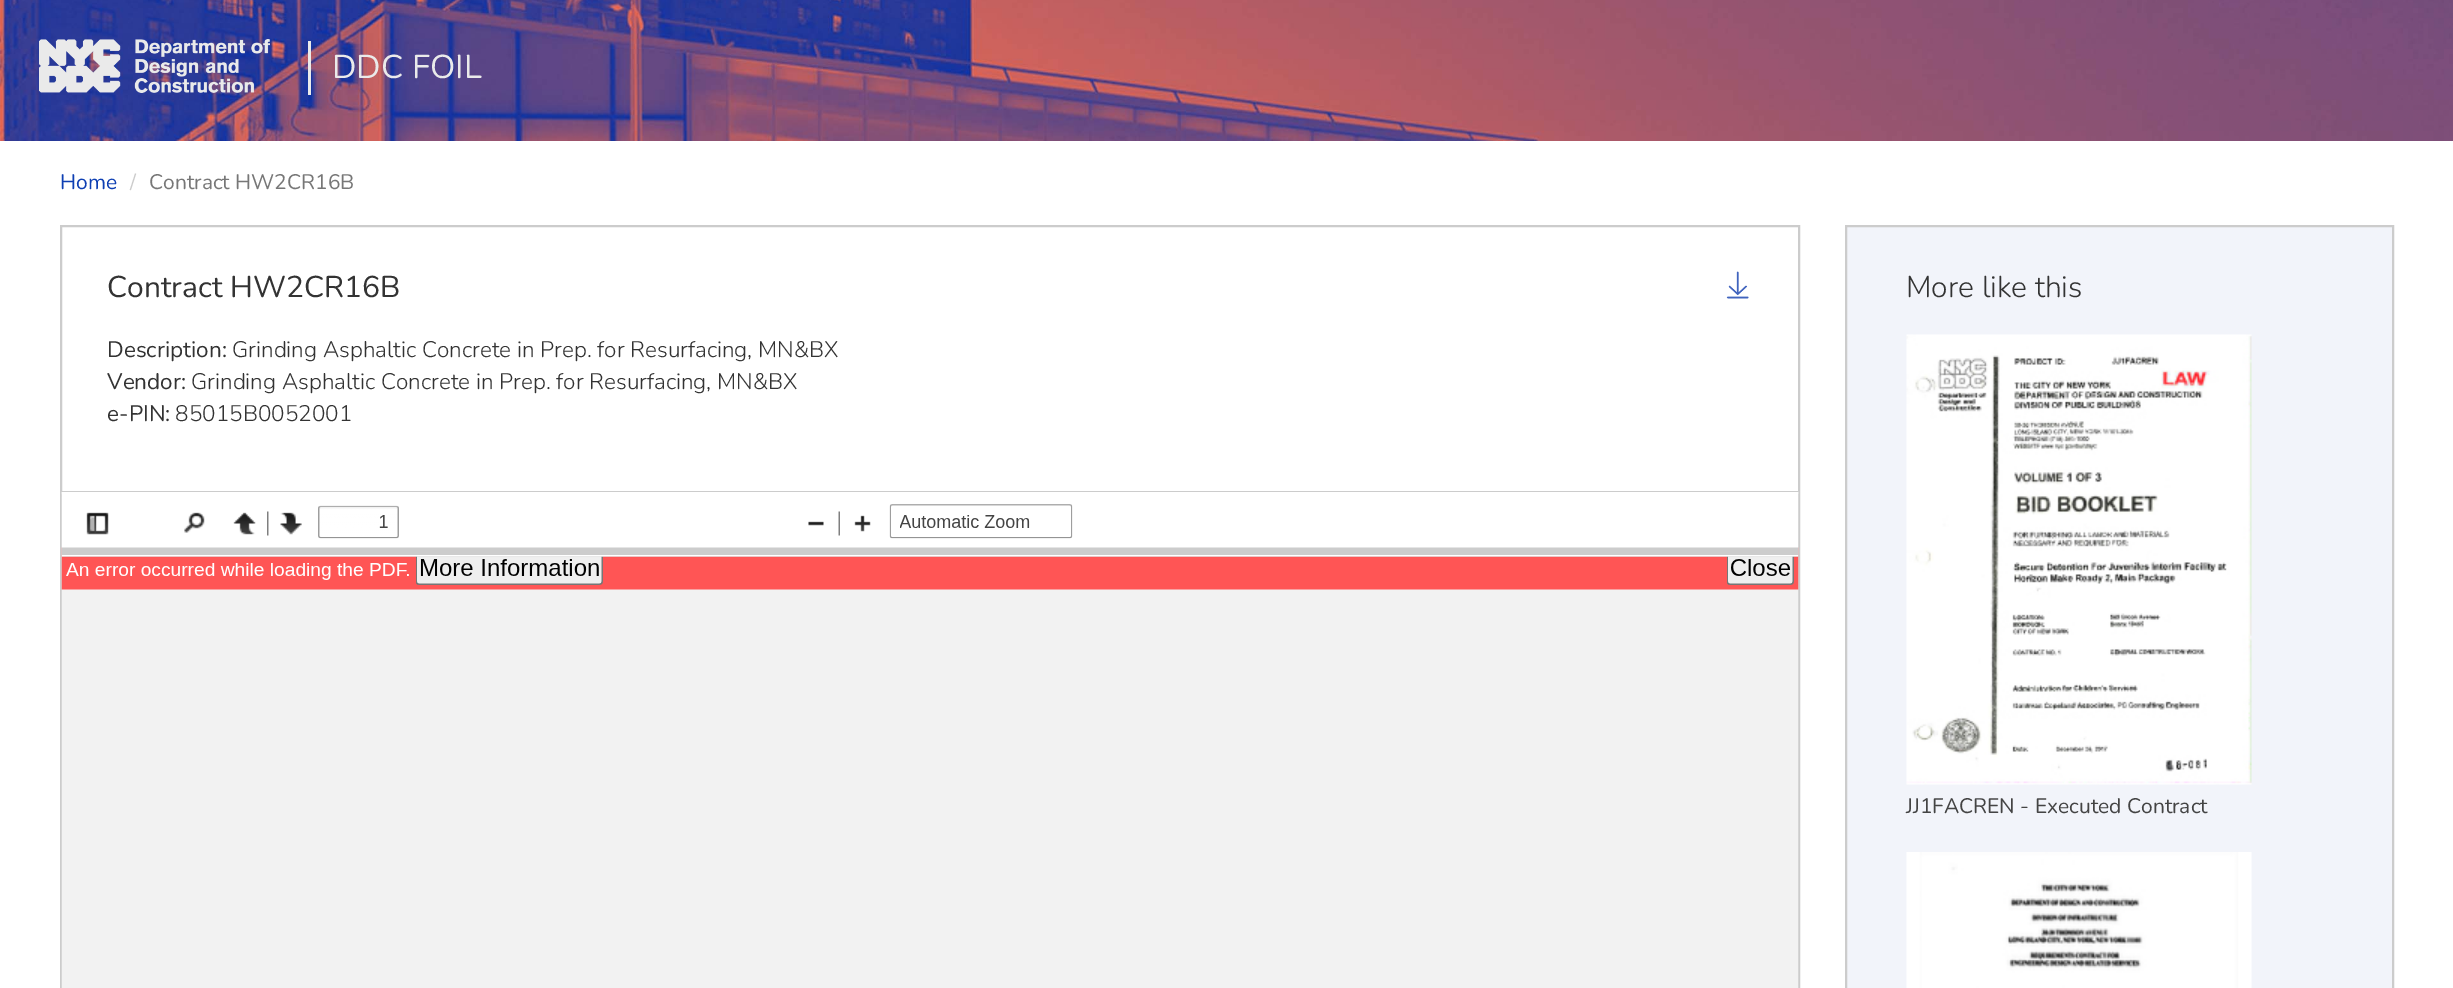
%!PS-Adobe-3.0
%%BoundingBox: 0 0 2453 988
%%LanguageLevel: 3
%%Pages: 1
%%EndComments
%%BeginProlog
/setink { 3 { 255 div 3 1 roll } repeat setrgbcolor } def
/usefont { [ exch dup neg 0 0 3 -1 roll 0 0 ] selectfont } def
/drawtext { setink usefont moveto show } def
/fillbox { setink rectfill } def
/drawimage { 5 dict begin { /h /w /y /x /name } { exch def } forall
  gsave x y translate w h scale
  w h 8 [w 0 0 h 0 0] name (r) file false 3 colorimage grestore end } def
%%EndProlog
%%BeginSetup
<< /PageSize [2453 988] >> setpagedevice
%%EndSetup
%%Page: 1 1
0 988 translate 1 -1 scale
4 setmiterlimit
0 0 2453 988 255 255 255 fillbox
(assets/img1.rgb) 0 0 2453 141 drawimage
(assets/img2.rgb) 39 39 231 54 drawimage
308 41 3 54 234 234 234 fillbox
(DDC FOIL) 332 78 /Nunito-Regular 33 234 234 234 drawtext
(Home) 60 189 /Nunito-Regular 21 14 63 179 drawtext
(/) 130 189 /Nunito-Regular 21 204 204 204 drawtext
(Contract HW2CR16B) 149 189 /Nunito-Regular 21 119 119 119 drawtext
204 204 204 setink
2 setlinewidth
61 226 1738 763 rectstroke
62 491 1737 2 204 204 204 fillbox
(Contract HW2CR16B) 107 297 /Nunito-Regular 30 51 51 51 drawtext
(assets/img3.rgb) 1726 271 23 28 drawimage
(Description:) 107 357 /Nunito-Regular 22.5 51 51 51 drawtext
(Grinding Asphaltic Concrete in Prep. for Resurfacing, MN&BX) 232 357 /Nunito-Light 22.5 51 51 51 drawtext
(Vendor:) 107 389 /Nunito-Regular 22.5 51 51 51 drawtext
(Grinding Asphaltic Concrete in Prep. for Resurfacing, MN&BX) 191 389 /Nunito-Light 22.5 51 51 51 drawtext
(e-PIN:) 107 421 /Nunito-Regular 22.5 51 51 51 drawtext
(85015B0052001) 175 421 /Nunito-Light 22.5 51 51 51 drawtext
(assets/img4.rgb) 61 492 1738 496 drawimage
242 244 250 setink
1846 226 moveto 2393 226 lineto 2393 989 lineto 1846 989 lineto closepath gsave fill grestore
204 204 204 setink
stroke
(More like this) 1906 297 /Nunito-Light 30 51 51 51 drawtext
(assets/img5.rgb) 1906 334 346 451 drawimage
(JJ1FACREN - Executed Contract) 1906 813 /Nunito-Regular 21 68 68 68 drawtext
(assets/img6.rgb) 1906 852 346 136 drawimage
showpage
%%EOF
